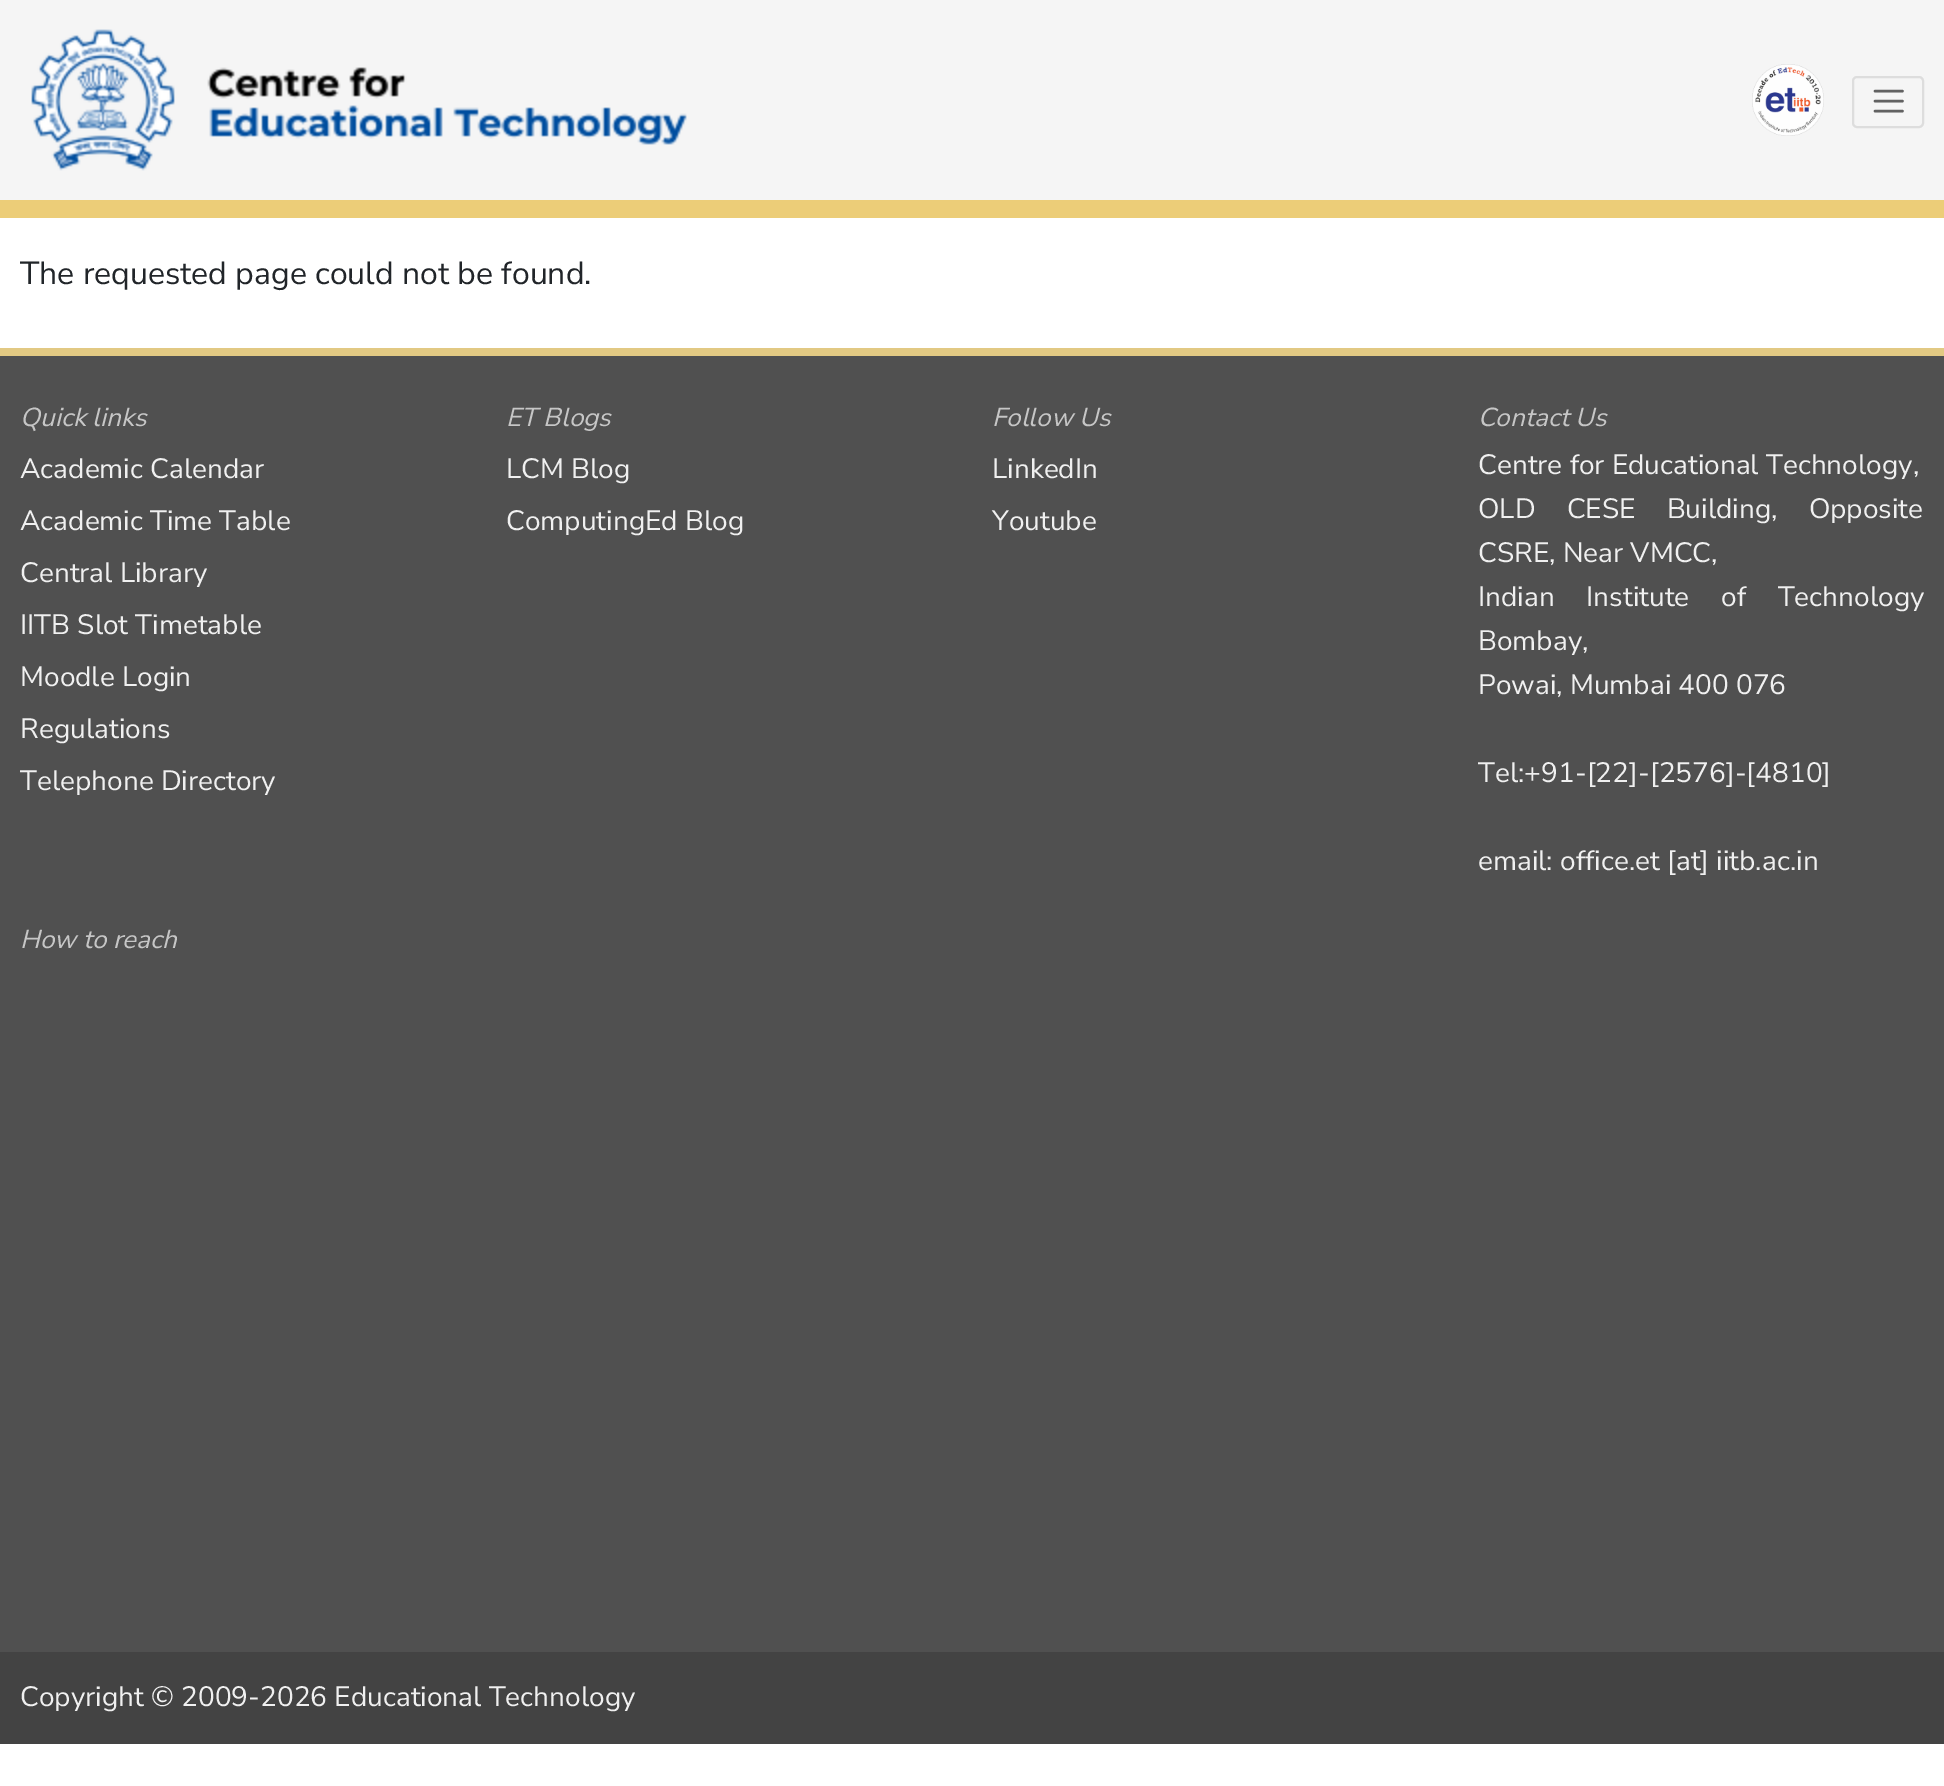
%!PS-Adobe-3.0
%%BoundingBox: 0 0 1944 1786
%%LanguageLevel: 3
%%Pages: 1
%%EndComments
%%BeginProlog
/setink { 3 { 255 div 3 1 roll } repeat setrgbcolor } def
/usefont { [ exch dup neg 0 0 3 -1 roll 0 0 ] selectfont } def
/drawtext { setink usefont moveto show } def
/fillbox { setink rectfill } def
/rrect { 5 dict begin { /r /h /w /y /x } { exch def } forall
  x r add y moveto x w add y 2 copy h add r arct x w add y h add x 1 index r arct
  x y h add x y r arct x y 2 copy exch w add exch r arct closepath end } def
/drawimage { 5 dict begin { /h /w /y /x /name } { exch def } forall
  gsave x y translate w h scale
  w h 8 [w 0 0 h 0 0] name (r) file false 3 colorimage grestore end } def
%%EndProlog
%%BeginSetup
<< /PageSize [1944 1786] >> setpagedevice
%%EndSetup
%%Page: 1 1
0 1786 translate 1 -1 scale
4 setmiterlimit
0 0 1944 1786 255 255 255 fillbox
0 200 1944 18 236 205 120 fillbox
0 0 1944 200 245 245 245 fillbox
(assets/img1.rgb) 31 29 656 142 drawimage
(assets/img2.rgb) 1752 64 72 72 drawimage
221 221 221 setink
2 setlinewidth
1853 77 70 50 4 rrect stroke
98 98 98 setink
2.5 setlinewidth
1 setlinecap
1875 91 moveto 1902.5 91 lineto 1875 101 moveto 1902.5 101 lineto 1875 111 moveto 1902.5 111 lineto stroke
(The requested page could not be found.) 20 284 /NunitoSans-Regular 32 33 37 41 drawtext
0 356 1944 1296 80 80 80 fillbox
0 348 1944 8 226 201 131 fillbox
(Quick links) 20 426 /NunitoSans-Italic 26 198 198 198 drawtext
(Academic Calendar) 20 478 /NunitoSans-Regular 28 240 240 240 drawtext
(Academic Time Table) 20 530 /NunitoSans-Regular 28 240 240 240 drawtext
(Central Library) 20 582 /NunitoSans-Regular 28 240 240 240 drawtext
(IITB Slot Timetable) 20 634 /NunitoSans-Regular 28 240 240 240 drawtext
(Moodle Login) 20 686 /NunitoSans-Regular 28 240 240 240 drawtext
(Regulations) 20 738 /NunitoSans-Regular 28 240 240 240 drawtext
(Telephone Directory) 20 790 /NunitoSans-Regular 28 240 240 240 drawtext
(ET Blogs) 506 426 /NunitoSans-Italic 26 198 198 198 drawtext
(LCM Blog) 506 478 /NunitoSans-Regular 28 240 240 240 drawtext
(ComputingEd Blog) 506 530 /NunitoSans-Regular 28 240 240 240 drawtext
(Follow Us) 992 426 /NunitoSans-Italic 26 198 198 198 drawtext
(LinkedIn) 992 478 /NunitoSans-Regular 28 240 240 240 drawtext
(Youtube) 992 530 /NunitoSans-Regular 28 240 240 240 drawtext
(Contact Us) 1478 426 /NunitoSans-Italic 26 198 198 198 drawtext
(Centre for Educational Technology,) 1478 474 /NunitoSans-Regular 28 240 240 240 drawtext
1478 518 moveto 24 0 32 (OLD CESE Building, Opposite) widthshow
(CSRE, Near VMCC,) 1478 562 /NunitoSans-Regular 28 240 240 240 drawtext
1478 606 moveto 24.5 0 32 (Indian Institute of Technology) widthshow
(Bombay,) 1478 650 /NunitoSans-Regular 28 240 240 240 drawtext
(Powai, Mumbai 400 076) 1478 694 /NunitoSans-Regular 28 240 240 240 drawtext
(Tel:+91-[22]-[2576]-[4810]) 1478 782 /NunitoSans-Regular 28 240 240 240 drawtext
(email: office.et [at] iitb.ac.in) 1478 870 /NunitoSans-Regular 28 240 240 240 drawtext
(How to reach) 20 948 /NunitoSans-Italic 26 198 198 198 drawtext
0 1652 1944 92 67 67 67 fillbox
(Copyright © 2009-2026 Educational Technology) 20 1706 /NunitoSans-Regular 28 240 240 240 drawtext
showpage
%%EOF
